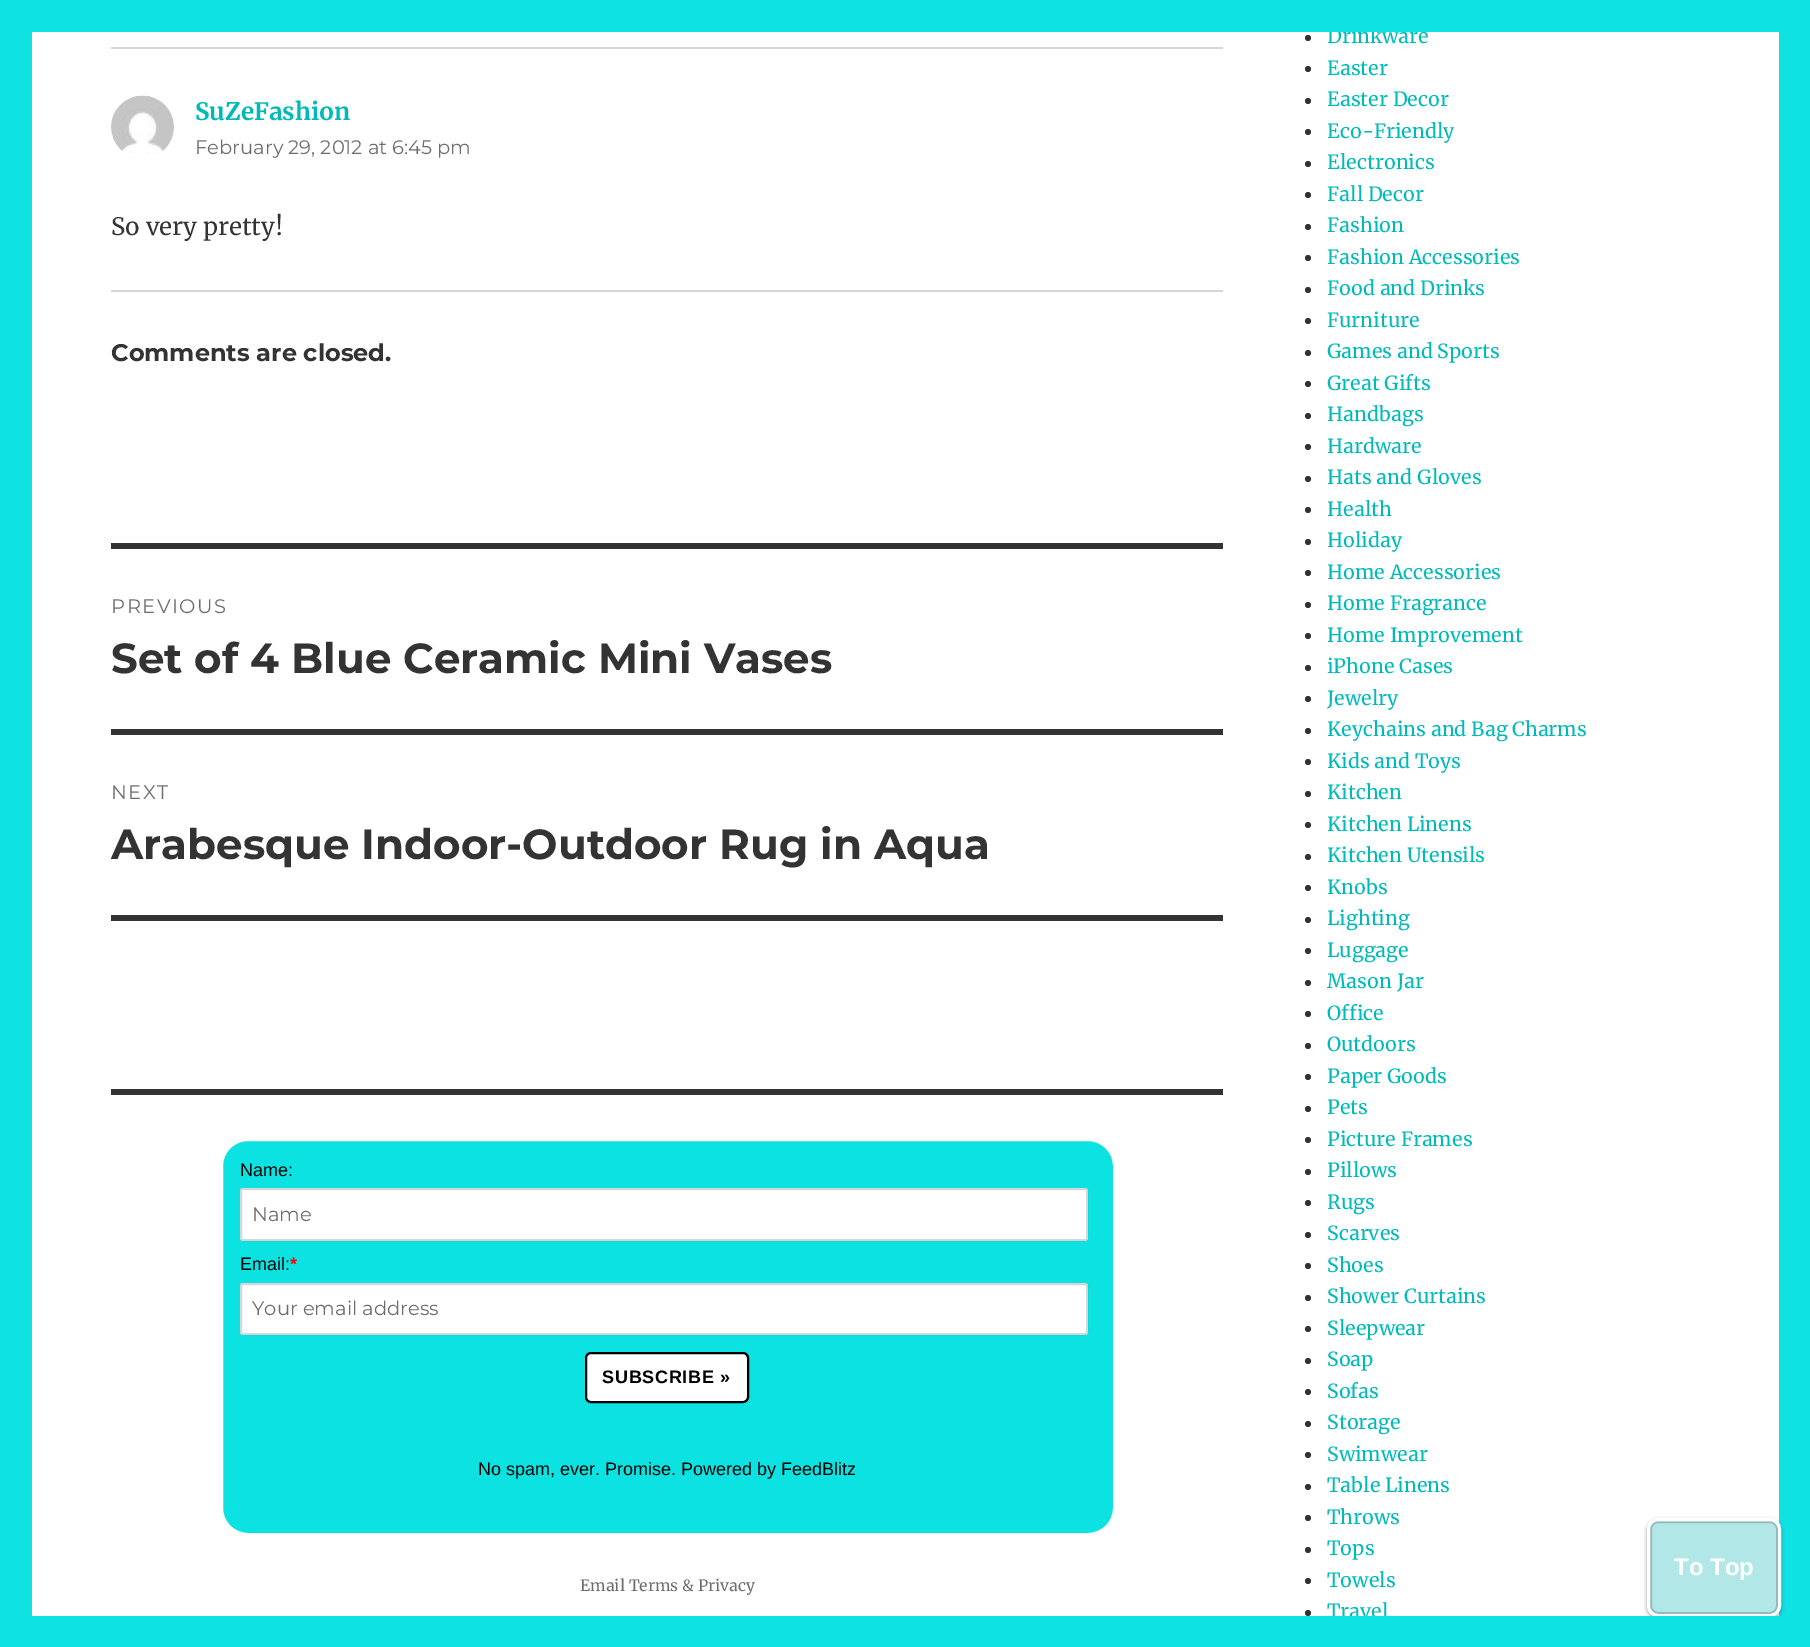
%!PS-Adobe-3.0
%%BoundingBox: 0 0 1810 1647
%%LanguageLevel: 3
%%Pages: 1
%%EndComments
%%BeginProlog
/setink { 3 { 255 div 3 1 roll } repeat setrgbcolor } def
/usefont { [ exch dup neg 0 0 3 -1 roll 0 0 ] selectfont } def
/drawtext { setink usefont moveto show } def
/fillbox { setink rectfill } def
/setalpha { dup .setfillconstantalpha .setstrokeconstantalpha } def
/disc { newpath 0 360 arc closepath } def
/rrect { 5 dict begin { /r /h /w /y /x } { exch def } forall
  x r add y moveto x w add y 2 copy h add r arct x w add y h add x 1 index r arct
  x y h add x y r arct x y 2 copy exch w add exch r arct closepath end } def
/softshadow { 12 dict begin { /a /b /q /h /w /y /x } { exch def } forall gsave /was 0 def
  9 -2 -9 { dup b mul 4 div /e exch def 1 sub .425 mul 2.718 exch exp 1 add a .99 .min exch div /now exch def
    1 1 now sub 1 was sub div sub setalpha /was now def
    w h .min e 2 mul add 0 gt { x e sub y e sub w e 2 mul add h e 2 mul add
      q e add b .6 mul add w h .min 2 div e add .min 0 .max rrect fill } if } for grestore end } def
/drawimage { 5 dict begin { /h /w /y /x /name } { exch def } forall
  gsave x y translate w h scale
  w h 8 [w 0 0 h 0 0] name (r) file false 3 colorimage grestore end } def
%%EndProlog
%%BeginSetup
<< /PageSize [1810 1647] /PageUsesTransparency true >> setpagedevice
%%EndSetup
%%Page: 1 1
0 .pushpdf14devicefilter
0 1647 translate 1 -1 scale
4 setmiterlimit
0 0 1810 1647 15 226 226 fillbox
32 32 1747 1584 255 255 255 fillbox
111 47 1112 2 214 214 214 fillbox
(assets/img1.rgb) 111 95 63 59 drawimage
(SuZeFashion) 195 120 /Merriweather-Bold 24 0 186 186 drawtext
(February 29, 2012 at 6:45 pm) 195 154 /Montserrat-Thin 19.5 109 109 109 drawtext
(So very pretty!) 111 235 /Merriweather-Regular 24 51 51 51 drawtext
111 290 1112 2 214 214 214 fillbox
(Comments are closed.) 111 361 /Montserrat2-Thin 24 51 51 51 drawtext
111 543 1112 6 51 51 51 fillbox
111 915 1112 6 51 51 51 fillbox
/Montserrat-Thin 19.5 usefont
109 109 109 setink
111 613 moveto 1.5 0 (PREVIOUS) ashow
(Set of 4 Blue Ceramic Mini Vases) 111 673 /Montserrat2-Thin 42 51 51 51 drawtext
111 729 1112 6 51 51 51 fillbox
/Montserrat-Thin 19.5 usefont
109 109 109 setink
111 799 moveto 1.5 0 (NEXT) ashow
(Arabesque Indoor-Outdoor Rug in Aqua) 111 859 /Montserrat2-Thin 42 51 51 51 drawtext
111 1089 1112 6 51 51 51 fillbox
12 226 226 setink
220.5 1138.5 895 397 27.5 rrect gsave fill grestore
255 255 255 setink
5 setlinewidth
stroke
(Name:) 240 1176 /LiberationSans-Regular 18 0 0 0 drawtext
255 255 255 setink
240 1188 848 53 3 rrect fill
0.2 setalpha
51 51 51 setink
2 setlinewidth
241 1189 846 51 2 rrect stroke
1 setalpha
(Name) 252 1221 /Montserrat-Thin 19.5 109 109 109 drawtext
(Email:) 240 1270 /LiberationSans-Regular 18 0 0 0 drawtext
(*) 290 1270 /LiberationSans-Bold 18 255 0 0 drawtext
255 255 255 setink
240 1283 848 52 3 rrect fill
0.2 setalpha
51 51 51 setink
241 1284 846 50 2 rrect stroke
1 setalpha
(Your email address) 252 1315 /Montserrat-Thin 19.5 109 109 109 drawtext
255 255 255 setink
586 1353 162 49 5 rrect gsave fill grestore
0 0 0 setink
stroke
/LiberationSans-Bold 18 usefont
602 1383 moveto 0.75 0 (SUBSCRIBE ») ashow
(No spam, ever. Promise. Powered by FeedBlitz) 478 1475 /LiberationSans-Regular 18 0 0 0 drawtext
(Email Terms & Privacy) 580 1591 /Merriweather-Regular 15.6 109 109 109 drawtext
51 51 51 setink
1308 38 3 disc fill
(Drinkware) 1327 43 /Merriweather-Regular 19.5 0 186 186 drawtext
51 51 51 setink
1308 69 3 disc fill
(Easter) 1327 75 /Merriweather-Regular 19.5 0 186 186 drawtext
51 51 51 setink
1308 101 3 disc fill
(Easter Decor) 1327 106 /Merriweather-Regular 19.5 0 186 186 drawtext
51 51 51 setink
1308 132 3 disc fill
(Eco-Friendly) 1327 138 /Merriweather-Regular 19.5 0 186 186 drawtext
51 51 51 setink
1308 164 3 disc fill
(Electronics) 1327 169 /Merriweather-Regular 19.5 0 186 186 drawtext
51 51 51 setink
1308 195 3 disc fill
(Fall Decor) 1327 201 /Merriweather-Regular 19.5 0 186 186 drawtext
51 51 51 setink
1308 227 3 disc fill
(Fashion) 1327 232 /Merriweather-Regular 19.5 0 186 186 drawtext
51 51 51 setink
1308 258 3 disc fill
(Fashion Accessories) 1327 264 /Merriweather-Regular 19.5 0 186 186 drawtext
51 51 51 setink
1308 290 3 disc fill
(Food and Drinks) 1327 295 /Merriweather-Regular 19.5 0 186 186 drawtext
51 51 51 setink
1308 321 3 disc fill
(Furniture) 1327 327 /Merriweather-Regular 19.5 0 186 186 drawtext
51 51 51 setink
1308 353 3 disc fill
(Games and Sports) 1327 358 /Merriweather-Regular 19.5 0 186 186 drawtext
51 51 51 setink
1308 384 3 disc fill
(Great Gifts) 1327 390 /Merriweather-Regular 19.5 0 186 186 drawtext
51 51 51 setink
1308 416 3 disc fill
(Handbags) 1327 421 /Merriweather-Regular 19.5 0 186 186 drawtext
51 51 51 setink
1308 447 3 disc fill
(Hardware) 1327 453 /Merriweather-Regular 19.5 0 186 186 drawtext
51 51 51 setink
1308 479 3 disc fill
(Hats and Gloves) 1327 484 /Merriweather-Regular 19.5 0 186 186 drawtext
51 51 51 setink
1308 510 3 disc fill
(Health) 1327 516 /Merriweather-Regular 19.5 0 186 186 drawtext
51 51 51 setink
1308 542 3 disc fill
(Holiday) 1327 547 /Merriweather-Regular 19.5 0 186 186 drawtext
51 51 51 setink
1308 573 3 disc fill
(Home Accessories) 1327 579 /Merriweather-Regular 19.5 0 186 186 drawtext
51 51 51 setink
1308 605 3 disc fill
(Home Fragrance) 1327 610 /Merriweather-Regular 19.5 0 186 186 drawtext
51 51 51 setink
1308 636 3 disc fill
(Home Improvement) 1327 642 /Merriweather-Regular 19.5 0 186 186 drawtext
51 51 51 setink
1308 668 3 disc fill
(iPhone Cases) 1327 673 /Merriweather-Regular 19.5 0 186 186 drawtext
51 51 51 setink
1308 699 3 disc fill
(Jewelry) 1327 705 /Merriweather-Regular 19.5 0 186 186 drawtext
51 51 51 setink
1308 731 3 disc fill
(Keychains and Bag Charms) 1327 736 /Merriweather-Regular 19.5 0 186 186 drawtext
51 51 51 setink
1308 762 3 disc fill
(Kids and Toys) 1327 768 /Merriweather-Regular 19.5 0 186 186 drawtext
51 51 51 setink
1308 794 3 disc fill
(Kitchen) 1327 799 /Merriweather-Regular 19.5 0 186 186 drawtext
51 51 51 setink
1308 825 3 disc fill
(Kitchen Linens) 1327 831 /Merriweather-Regular 19.5 0 186 186 drawtext
51 51 51 setink
1308 857 3 disc fill
(Kitchen Utensils) 1327 862 /Merriweather-Regular 19.5 0 186 186 drawtext
51 51 51 setink
1308 888 3 disc fill
(Knobs) 1327 894 /Merriweather-Regular 19.5 0 186 186 drawtext
51 51 51 setink
1308 920 3 disc fill
(Lighting) 1327 925 /Merriweather-Regular 19.5 0 186 186 drawtext
51 51 51 setink
1308 951 3 disc fill
(Luggage) 1327 957 /Merriweather-Regular 19.5 0 186 186 drawtext
51 51 51 setink
1308 983 3 disc fill
(Mason Jar) 1327 988 /Merriweather-Regular 19.5 0 186 186 drawtext
51 51 51 setink
1308 1014 3 disc fill
(Office) 1327 1020 /Merriweather-Regular 19.5 0 186 186 drawtext
51 51 51 setink
1308 1046 3 disc fill
(Outdoors) 1327 1051 /Merriweather-Regular 19.5 0 186 186 drawtext
51 51 51 setink
1308 1077 3 disc fill
(Paper Goods) 1327 1083 /Merriweather-Regular 19.5 0 186 186 drawtext
51 51 51 setink
1308 1109 3 disc fill
(Pets) 1327 1114 /Merriweather-Regular 19.5 0 186 186 drawtext
51 51 51 setink
1308 1140 3 disc fill
(Picture Frames) 1327 1146 /Merriweather-Regular 19.5 0 186 186 drawtext
51 51 51 setink
1308 1172 3 disc fill
(Pillows) 1327 1177 /Merriweather-Regular 19.5 0 186 186 drawtext
51 51 51 setink
1308 1203 3 disc fill
(Rugs) 1327 1209 /Merriweather-Regular 19.5 0 186 186 drawtext
51 51 51 setink
1308 1235 3 disc fill
(Scarves) 1327 1240 /Merriweather-Regular 19.5 0 186 186 drawtext
51 51 51 setink
1308 1266 3 disc fill
(Shoes) 1327 1272 /Merriweather-Regular 19.5 0 186 186 drawtext
51 51 51 setink
1308 1298 3 disc fill
(Shower Curtains) 1327 1303 /Merriweather-Regular 19.5 0 186 186 drawtext
51 51 51 setink
1308 1329 3 disc fill
(Sleepwear) 1327 1335 /Merriweather-Regular 19.5 0 186 186 drawtext
51 51 51 setink
1308 1361 3 disc fill
(Soap) 1327 1366 /Merriweather-Regular 19.5 0 186 186 drawtext
51 51 51 setink
1308 1392 3 disc fill
(Sofas) 1327 1398 /Merriweather-Regular 19.5 0 186 186 drawtext
51 51 51 setink
1308 1424 3 disc fill
(Storage) 1327 1429 /Merriweather-Regular 19.5 0 186 186 drawtext
51 51 51 setink
1308 1455 3 disc fill
(Swimwear) 1327 1461 /Merriweather-Regular 19.5 0 186 186 drawtext
51 51 51 setink
1308 1487 3 disc fill
(Table Linens) 1327 1492 /Merriweather-Regular 19.5 0 186 186 drawtext
51 51 51 setink
1308 1518 3 disc fill
(Throws) 1327 1524 /Merriweather-Regular 19.5 0 186 186 drawtext
51 51 51 setink
1308 1550 3 disc fill
(Tops) 1327 1555 /Merriweather-Regular 19.5 0 186 186 drawtext
51 51 51 setink
1308 1581 3 disc fill
(Towels) 1327 1587 /Merriweather-Regular 19.5 0 186 186 drawtext
51 51 51 setink
1308 1613 3 disc fill
(Travel) 1327 1618 /Merriweather-Regular 19.5 0 186 186 drawtext
1327 27 97 5 15 226 226 fillbox
gsave
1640 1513 moveto 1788 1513 lineto 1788 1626 lineto 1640 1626 lineto closepath 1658 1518 moveto 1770 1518 lineto 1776 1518 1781 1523 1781 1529 curveto 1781 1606 lineto 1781 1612 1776 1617 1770 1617 curveto 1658 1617 lineto 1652 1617 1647 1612 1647 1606 curveto 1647 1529 lineto 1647 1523 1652 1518 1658 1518 curveto closepath eoclip newpath
0 0 0 setink
1647 1520 134 99 11 2 0.38 softshadow
grestore
178 231 232 setink
1650 1521 128 93 8 rrect fill
0.4 setalpha
255 255 255 setink
1658 1522 moveto 1770 1522 lineto 1774 1522 1778 1526 1778 1530 curveto 1778 1516 1759 1521 1751 1521 curveto 1677 1521 lineto 1669 1521 1650 1516 1650 1530 curveto 1650 1526 1653 1522 1658 1522 curveto closepath fill
0.2 setalpha
11 11 11 setink
1651 1522 126 91 7 rrect stroke
0.96 setalpha
255 255 255 setink
3 setlinewidth
1648.5 1519.5 131 96 9.5 rrect stroke
1 setalpha
(To Top) 1674 1575 /LiberationSans-Bold 24 255 255 255 drawtext
1329 1616 453 7 15 226 226 fillbox
.poppdf14devicefilter showpage
%%EOF
